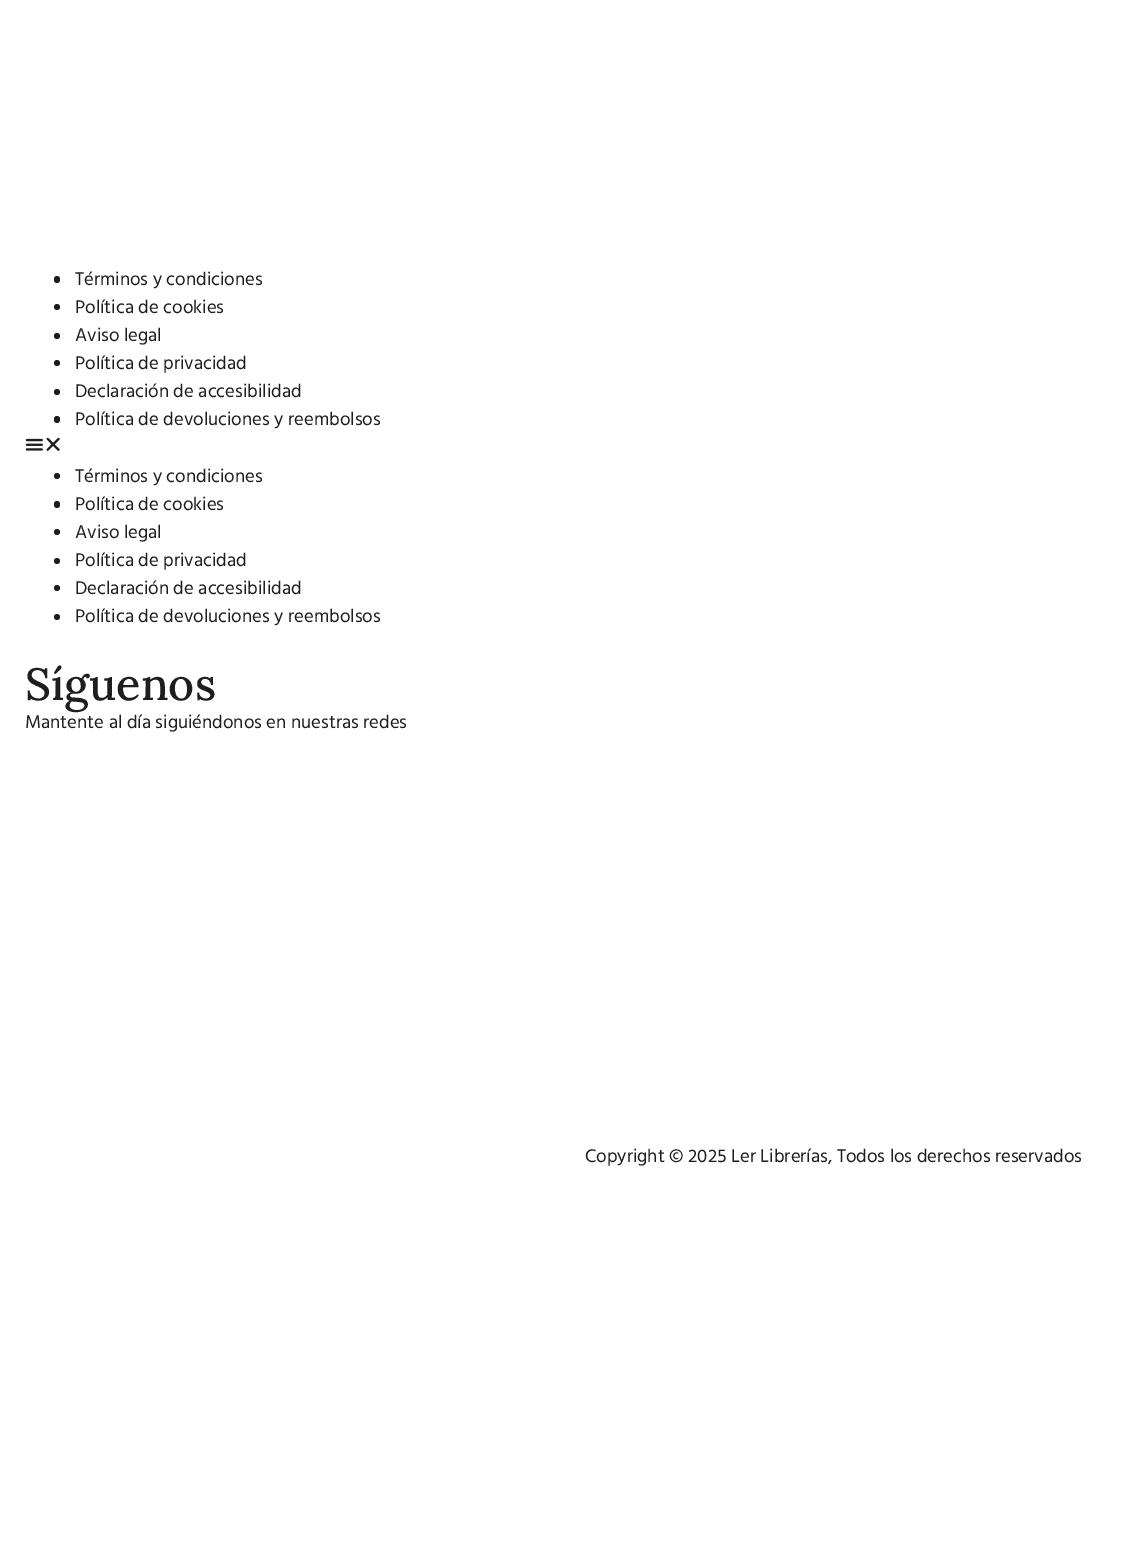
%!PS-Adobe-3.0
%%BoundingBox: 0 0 1145 1560
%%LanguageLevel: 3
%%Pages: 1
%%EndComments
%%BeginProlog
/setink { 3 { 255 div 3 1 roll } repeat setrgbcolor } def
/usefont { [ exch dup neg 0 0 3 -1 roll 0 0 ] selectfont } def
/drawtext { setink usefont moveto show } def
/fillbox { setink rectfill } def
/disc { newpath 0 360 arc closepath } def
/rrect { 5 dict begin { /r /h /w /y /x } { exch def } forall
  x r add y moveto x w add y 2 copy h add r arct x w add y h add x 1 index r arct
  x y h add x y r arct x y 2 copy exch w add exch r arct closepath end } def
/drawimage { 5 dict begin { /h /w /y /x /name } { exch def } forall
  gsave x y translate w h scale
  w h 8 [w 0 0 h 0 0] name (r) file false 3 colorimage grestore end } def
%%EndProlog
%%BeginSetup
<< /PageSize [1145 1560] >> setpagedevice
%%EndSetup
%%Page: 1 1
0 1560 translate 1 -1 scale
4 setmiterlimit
0 0 1145 1560 255 255 255 fillbox
30 30 30 setink
54 276 6 7 3 rrect fill
(Términos y condiciones) 75 285 /Hind-Regular 18.75 30 30 30 drawtext
57 307 3 disc fill
(Política de cookies) 75 313 /Hind-Regular 18.75 30 30 30 drawtext
57 336 3 disc fill
(Aviso legal) 75 341 /Hind-Regular 18.75 30 30 30 drawtext
57 363 3 disc fill
(Política de privacidad) 75 369 /Hind-Regular 18.75 30 30 30 drawtext
57 392 3 disc fill
(Declaración de accesibilidad) 75 397 /Hind-Regular 18.75 30 30 30 drawtext
54 416 6 7 3 rrect fill
(Política de devoluciones y reembolsos) 75 425 /Hind-Regular 18.75 30 30 30 drawtext
(assets/img1.rgb) 25 438 18 13 drawimage
(assets/img2.rgb) 46 437 14 14 drawimage
57 476 3 disc fill
(Términos y condiciones) 75 482 /Hind-Regular 18.75 30 30 30 drawtext
54 501 6 7 3 rrect fill
(Política de cookies) 75 510 /Hind-Regular 18.75 30 30 30 drawtext
57 532 3 disc fill
(Aviso legal) 75 538 /Hind-Regular 18.75 30 30 30 drawtext
57 561 3 disc fill
(Política de privacidad) 75 566 /Hind-Regular 18.75 30 30 30 drawtext
57 588 3 disc fill
(Declaración de accesibilidad) 75 594 /Hind-Regular 18.75 30 30 30 drawtext
57 617 3 disc fill
(Política de devoluciones y reembolsos) 75 622 /Hind-Regular 18.75 30 30 30 drawtext
(Síguenos) 25 700 /Lora-Medium 45 30 30 30 drawtext
(Mantente al día siguiéndonos en nuestras redes) 25 728 /Hind-Regular 18.75 30 30 30 drawtext
(Copyright © 2025 Ler Librerías, Todos los derechos reservados) 585 1162 /Hind-Regular 18.75 30 30 30 drawtext
showpage
%%EOF
